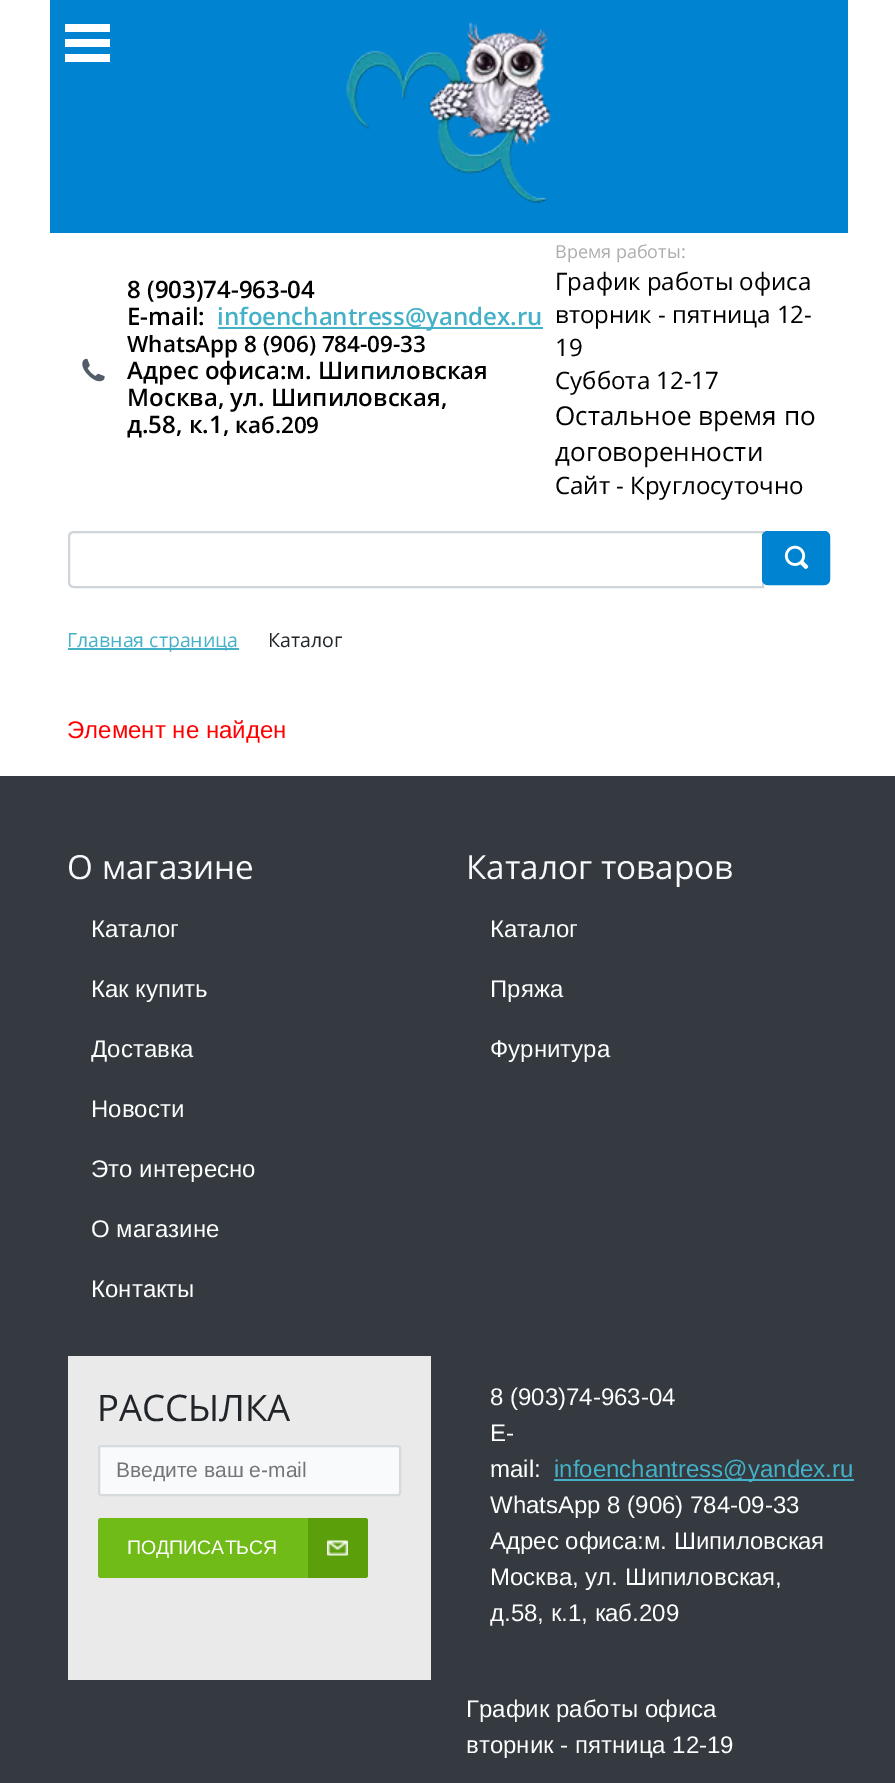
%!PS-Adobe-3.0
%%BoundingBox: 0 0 895 1783
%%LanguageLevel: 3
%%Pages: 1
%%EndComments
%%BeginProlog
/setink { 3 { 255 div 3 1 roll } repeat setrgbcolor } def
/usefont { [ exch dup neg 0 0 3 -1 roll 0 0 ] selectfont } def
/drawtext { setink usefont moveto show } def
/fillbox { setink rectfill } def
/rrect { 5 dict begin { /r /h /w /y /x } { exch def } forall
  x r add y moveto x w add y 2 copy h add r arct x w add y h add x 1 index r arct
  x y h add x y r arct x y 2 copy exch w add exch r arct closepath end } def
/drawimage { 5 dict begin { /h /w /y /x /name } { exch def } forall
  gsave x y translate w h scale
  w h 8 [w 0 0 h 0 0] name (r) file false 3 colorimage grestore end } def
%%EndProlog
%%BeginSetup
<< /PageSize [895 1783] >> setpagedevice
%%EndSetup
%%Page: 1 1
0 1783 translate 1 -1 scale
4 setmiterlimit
0 0 895 1783 255 255 255 fillbox
50 0 798 233 0 131 209 fillbox
(assets/img1.rgb) 346 22 205 181 drawimage
65 24 45 8 255 255 255 fillbox
65 54 45 8 255 255 255 fillbox
65 39 45 8 255 255 255 fillbox
(assets/img2.rgb) 82 358 23 24 drawimage
(8 \(903\)74-963-04) 127 298 /OpenSans-SemiBold 24 0 0 0 drawtext
(E-mail:) 127 325 /OpenSans-SemiBold 24 0 0 0 drawtext
218 327 325 2 68 177 201 fillbox
(infoenchantress@yandex.ru) 217 325 /OpenSans-SemiBold 24 68 177 201 drawtext
(WhatsApp 8 \(906\) 784-09-33) 127 352 /OpenSans-SemiBold 22.5 0 0 0 drawtext
(Адрес офиса:м. Шипиловская) 127 379 /OpenSans-SemiBold 24 0 0 0 drawtext
(Москва, ул. Шипиловская,) 127 406 /OpenSans-SemiBold 24 0 0 0 drawtext
(д.58, к.1,) 127 433 /OpenSans-SemiBold 24 0 0 0 drawtext
(каб.209) 235 433 /OpenSans-SemiBold 22.5 0 0 0 drawtext
(Время работы:) 555 258 /OpenSans-Regular 18 173 173 173 drawtext
(График работы офиса) 555 290 /OpenSans-Regular 24 0 0 0 drawtext
(вторник - пятница 12-) 555 323 /OpenSans-Regular 24 0 0 0 drawtext
(19) 555 356 /OpenSans-Regular 24 0 0 0 drawtext
(Суббота 12-17) 555 389 /OpenSans-Regular 24 0 0 0 drawtext
(Остальное время по) 555 425 /OpenSans-Regular 26 0 0 0 drawtext
(договоренности) 555 461 /OpenSans-Regular 26 0 0 0 drawtext
(Сайт - Круглосуточно) 555 494 /OpenSans-Regular 24 0 0 0 drawtext
206 212 218 setink
2 setlinewidth
74 532 moveto 763 532 lineto 763 587 lineto 74 587 lineto 71 587 69 585 69 582 curveto 69 537 lineto 69 534 71 532 74 532 curveto closepath stroke
0 131 209 setink
762 531 68 54 6 rrect fill
(assets/img3.rgb) 784 545 25 24 drawimage
763 532 66 52 5 rrect stroke
68 648 171 2 68 177 201 fillbox
(Главная страница) 67 647 /OpenSans-Regular 19.5 68 177 201 drawtext
(Каталог) 268 647 /OpenSans-Regular 19.5 33 37 41 drawtext
(Элемент не найден) 67 738 /LiberationSans-Regular 24 255 0 0 drawtext
0 776 895 1007 52 58 64 fillbox
(О магазине) 67 879 /OpenSans-Regular 33.25 248 249 250 drawtext
(Каталог) 91 937 /LiberationSans-Regular 24 255 255 255 drawtext
(Как купить) 91 997 /LiberationSans-Regular 24 255 255 255 drawtext
(Доставка) 91 1057 /LiberationSans-Regular 24 255 255 255 drawtext
(Новости) 91 1117 /LiberationSans-Regular 24 255 255 255 drawtext
(Это интересно) 91 1177 /LiberationSans-Regular 24 255 255 255 drawtext
(О магазине) 91 1237 /LiberationSans-Regular 24 255 255 255 drawtext
(Контакты) 91 1297 /LiberationSans-Regular 24 255 255 255 drawtext
(Каталог товаров) 466 879 /OpenSans-Regular 33.25 248 249 250 drawtext
(Каталог) 490 937 /LiberationSans-Regular 24 255 255 255 drawtext
(Пряжа) 490 997 /LiberationSans-Regular 24 255 255 255 drawtext
(Фурнитура) 490 1057 /LiberationSans-Regular 24 255 255 255 drawtext
68 1356 363 324 234 234 235 fillbox
(РАССЫЛКА) 97 1421 /OpenSans-Regular 36.5 33 37 41 drawtext
248 250 252 setink
99 1446 301 49 2 rrect gsave fill grestore
213 218 220 setink
stroke
(Введите ваш e-mail) 116 1477 /LiberationSans-Regular 21 117 117 117 drawtext
112 187 24 setink
98 1518 270 60 3 rrect fill
(ПОДПИСАТЬСЯ) 127 1554 /LiberationSans-Regular 19.5 255 255 255 drawtext
91 159 11 setink
308 1518 moveto 365 1518 lineto 366.5 1518 368 1519.5 368 1521 curveto 368 1575 lineto 368 1576.5 366.5 1578 365 1578 curveto 308 1578 lineto closepath fill
(assets/img4.rgb) 327 1540 21 16 drawimage
(8 \(903\)74-963-04) 490 1405 /LiberationSans-Regular 24 255 255 255 drawtext
(E-) 490 1441 /LiberationSans-Regular 24 255 255 255 drawtext
(mail:) 490 1477 /LiberationSans-Regular 24 255 255 255 drawtext
554 1479 300 2 68 177 201 fillbox
(infoenchantress@yandex.ru) 554 1477 /LiberationSans-Regular 24 68 177 201 drawtext
(WhatsApp 8 \(906\) 784-09-33) 490 1513 /LiberationSans-Regular 24 255 255 255 drawtext
(Адрес офиса:м. Шипиловская) 490 1549 /LiberationSans-Regular 24 255 255 255 drawtext
(Москва, ул. Шипиловская,) 490 1585 /LiberationSans-Regular 24 255 255 255 drawtext
(д.58, к.1, каб.209) 490 1621 /LiberationSans-Regular 24 255 255 255 drawtext
(График работы офиса) 466 1717 /LiberationSans-Regular 24 255 255 255 drawtext
(вторник - пятница 12-19) 466 1753 /LiberationSans-Regular 24 255 255 255 drawtext
showpage
%%EOF
